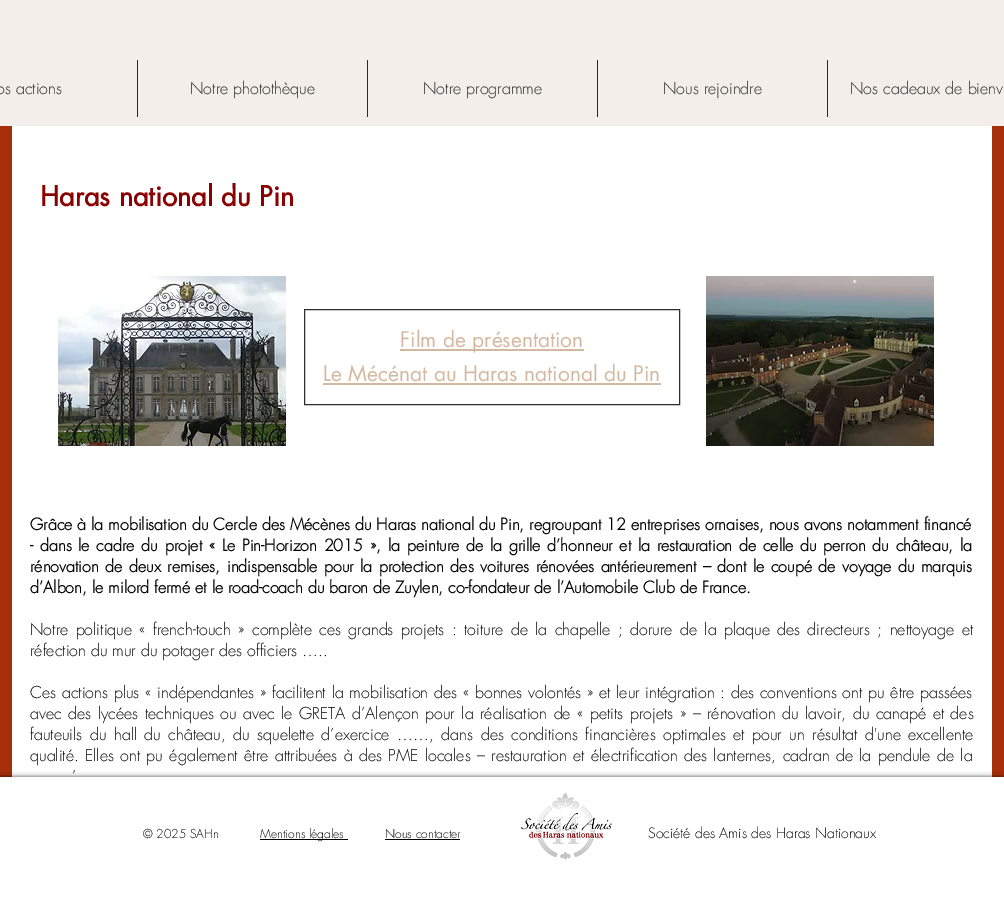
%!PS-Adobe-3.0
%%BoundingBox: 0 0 1004 897
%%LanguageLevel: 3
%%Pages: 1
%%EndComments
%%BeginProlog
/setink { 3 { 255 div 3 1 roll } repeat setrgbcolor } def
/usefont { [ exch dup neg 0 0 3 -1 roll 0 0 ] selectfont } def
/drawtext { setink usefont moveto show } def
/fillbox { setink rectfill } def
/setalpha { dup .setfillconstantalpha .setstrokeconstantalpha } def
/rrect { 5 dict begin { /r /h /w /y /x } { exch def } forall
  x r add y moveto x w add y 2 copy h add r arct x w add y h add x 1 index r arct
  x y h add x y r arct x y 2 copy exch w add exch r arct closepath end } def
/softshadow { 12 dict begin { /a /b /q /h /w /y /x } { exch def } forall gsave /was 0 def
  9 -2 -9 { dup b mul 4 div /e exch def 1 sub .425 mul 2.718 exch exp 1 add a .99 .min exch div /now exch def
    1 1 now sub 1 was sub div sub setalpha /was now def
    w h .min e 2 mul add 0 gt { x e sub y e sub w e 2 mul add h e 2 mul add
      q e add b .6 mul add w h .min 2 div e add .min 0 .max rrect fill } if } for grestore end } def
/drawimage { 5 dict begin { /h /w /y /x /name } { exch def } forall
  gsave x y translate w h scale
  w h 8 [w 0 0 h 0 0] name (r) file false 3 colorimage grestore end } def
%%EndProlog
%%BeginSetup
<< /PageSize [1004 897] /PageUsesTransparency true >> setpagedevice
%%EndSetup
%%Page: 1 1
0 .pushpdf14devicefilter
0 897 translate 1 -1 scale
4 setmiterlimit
0 0 1004 897 166 47 12 fillbox
0 0 1004 126 243 238 233 fillbox
(os actions) -4 94 /futura-Light 16 34 33 32 drawtext
137 60 1 57 47 38 30 fillbox
(Notre photothèque) 190 94 /futura-Light 16 34 33 32 drawtext
367 60 1 57 47 38 30 fillbox
(Notre programme) 423 94 /futura-Light 16 34 33 32 drawtext
597 60 1 57 47 38 30 fillbox
(Nous rejoindre) 663 94 /futura-Light 16 34 33 32 drawtext
827 60 1 57 47 38 30 fillbox
(Nos cadeaux de bienv) 850 94 /futura-Light 16 34 33 32 drawtext
12 126 980 651 255 255 255 fillbox
(Haras national du Pin) 40 206 /futura-Bold 27 139 0 0 drawtext
(assets/img1.rgb) 58 276 228 170 drawimage
47 46 46 setink
304.5 309.5 375 95 rectstroke
400 349 184 2 212 185 161 fillbox
(Film de présentation) 400 347 /futura-Regular 21 212 185 161 drawtext
(Le Mécénat au Haras national du Pin) 323 381 /futura-Regular 21 212 185 161 drawtext
323 383 338 2 212 185 161 fillbox
(assets/img2.rgb) 706 276 228 170 drawimage
(Grâce à la mobilisation du Cercle des Mécènes du Haras national du Pin, regroupant 12 entreprises ornaises, nous avons notamment financé) 30 530 /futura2-Bold 16 0 0 0 drawtext
30 551 moveto 1.8 0 32 (- dans le cadre du projet « Le Pin-Horizon 2015 », la peinture de la grille d’honneur et la restauration de celle du perron du château, la) widthshow
30 572 moveto 1.6 0 32 (rénovation de deux remises, indispensable pour la protection des voitures rénovées antérieurement – dont le coupé de voyage du marquis) widthshow
(d’Albon, le milord fermé et le road-coach du baron de Zuylen, co-fondateur de l’Automobile Club de France.) 30 593 /futura2-Bold 16 0 0 0 drawtext
/futura-Light 16 usefont
30 635 moveto 2.4 0 32 (Notre politique « french-touch » complète ces grands projets : toiture de la chapelle ; dorure de la plaque des directeurs ; nettoyage et) widthshow
(réfection du mur du potager des officiers …..) 30 656 /futura-Light 16 0 0 0 drawtext
30 698 moveto 0.8 0 32 (Ces actions plus « indépendantes » facilitent la mobilisation des « bonnes volontés » et leur intégration : des conventions ont pu être passées) widthshow
30 719 moveto 1.5 0 32 (avec des lycées techniques ou avec le GRETA d’Alençon pour la réalisation de « petits projets » – rénovation du lavoir, du canapé et des) widthshow
30 740 moveto 2.5 0 32 (fauteuils du hall du château, du squelette d’exercice ……, dans des conditions financières optimales et pour un résultat d'une excellente) widthshow
30 761 moveto 1.4 0 32 (qualité. Elles ont pu également être attribuées à des PME locales – restauration et électrification des lanternes, cadran de la pendule de la) widthshow
(’) 72 782 /futura-Light 16 0 0 0 drawtext
0 777 1004 120 0 2.5 0.7 softshadow
0 777 1004 120 255 255 255 fillbox
(© 2025 SAHn) 143 838 /futura-Light 12 0 0 0 drawtext
260 839 88 1 0 0 0 fillbox
(Mentions légales) 260 838 /futura-Light 12 0 0 0 drawtext
(Nous contacter) 385 838 /futura-Light 12 0 0 0 drawtext
385 839 75 1 0 0 0 fillbox
(assets/img3.rgb) 521 793 91 67 drawimage
(Société des Amis des Haras Nationaux) 648 838 /futura-Light 14 0 0 0 drawtext
.poppdf14devicefilter showpage
%%EOF
